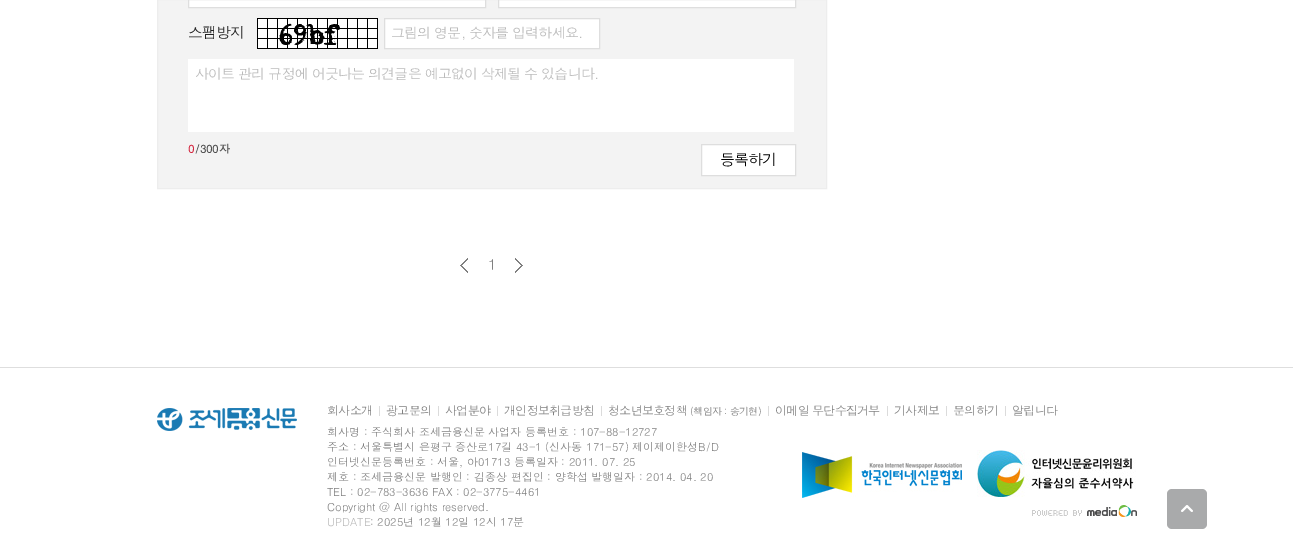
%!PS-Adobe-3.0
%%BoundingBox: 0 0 1293 559
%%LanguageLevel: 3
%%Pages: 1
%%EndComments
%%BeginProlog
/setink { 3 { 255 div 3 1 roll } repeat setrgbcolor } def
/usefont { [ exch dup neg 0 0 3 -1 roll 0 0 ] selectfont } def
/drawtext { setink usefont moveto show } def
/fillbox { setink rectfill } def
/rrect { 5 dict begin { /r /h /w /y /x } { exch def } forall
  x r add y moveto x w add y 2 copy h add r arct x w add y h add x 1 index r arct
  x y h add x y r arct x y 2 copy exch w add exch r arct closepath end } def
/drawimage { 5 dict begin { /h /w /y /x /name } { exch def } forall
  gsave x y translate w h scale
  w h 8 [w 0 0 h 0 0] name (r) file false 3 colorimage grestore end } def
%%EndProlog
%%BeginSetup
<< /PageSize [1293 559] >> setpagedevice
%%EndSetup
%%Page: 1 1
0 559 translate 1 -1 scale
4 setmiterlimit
0 0 1293 559 255 255 255 fillbox
243 243 243 setink
157.5 -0.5 moveto 826.5 -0.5 lineto 826.5 188.5 lineto 157.5 188.5 lineto closepath gsave fill grestore
237 237 237 setink
stroke
255 255 255 setink
188.5 -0.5 moveto 485.5 -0.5 lineto 485.5 7.5 lineto 188.5 7.5 lineto closepath gsave fill grestore
222 222 222 setink
stroke
255 255 255 setink
498.5 -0.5 moveto 795.5 -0.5 lineto 795.5 7.5 lineto 498.5 7.5 lineto closepath gsave fill grestore
222 222 222 setink
stroke
/Dotum-Regular 15 usefont
34 34 34 setink
188 38 moveto -1 0 (스팸방지) ashow
(assets/img1.rgb) 257 18 121 31 drawimage
255 255 255 setink
384.5 18.5 moveto 599.5 18.5 lineto 599.5 48.5 lineto 384.5 48.5 lineto closepath gsave fill grestore
222 222 222 setink
stroke
/Dotum-Regular 14 usefont
187 187 187 setink
391 38 moveto -0.85 0 (그림의 영문, 숫자를 입력하세요.) ashow
188 59 606 73 255 255 255 fillbox
187 187 187 setink
195 79 moveto -0.85 0 (사이트 관리 규정에 어긋나는 의견글은 예고없이 삭제될 수 있습니다.) ashow
(0) 188 153 /Dotum-Bold 11 212 37 62 drawtext
(/300자) 195 153 /Dotum-Bold 11 76 76 76 drawtext
255 255 255 setink
701.5 144.5 moveto 795.5 144.5 lineto 795.5 175.5 lineto 701.5 175.5 lineto closepath gsave fill grestore
222 222 222 setink
stroke
/Dotum-Regular 15 usefont
0 0 0 setink
720 165 moveto -1 0 (등록하기) ashow
(assets/img2.rgb) 460 258 8 15 drawimage
128 128 128 setink
488 270 moveto -1 0 (1) ashow
(assets/img3.rgb) 515 258 8 15 drawimage
0 367 1293 1 222 222 222 fillbox
(assets/img4.rgb) 157 408 140 23 drawimage
/Dotum-Regular 12 usefont
128 128 128 setink
327 415 moveto -0.75 0 (회사소개) ashow
379 406 1 10 219 219 219 fillbox
128 128 128 setink
386 415 moveto -0.75 0 (광고문의) ashow
438 406 1 10 219 219 219 fillbox
128 128 128 setink
445 415 moveto -0.75 0 (사업분야) ashow
497 406 1 10 219 219 219 fillbox
128 128 128 setink
504 415 moveto -0.75 0 (개인정보취급방침) ashow
601 406 1 10 219 219 219 fillbox
128 128 128 setink
608 415 moveto -0.75 0 (청소년보호정책) ashow
/Dotum-Regular 10 usefont
690 415 moveto -0.6 0 (\(책임자 : 송기현\)) ashow
768 406 1 10 219 219 219 fillbox
/Dotum-Regular 12 usefont
128 128 128 setink
775 415 moveto -0.75 0 (이메일 무단수집거부) ashow
887 406 1 10 219 219 219 fillbox
128 128 128 setink
894 415 moveto -0.75 0 (기사제보) ashow
946 406 1 10 219 219 219 fillbox
128 128 128 setink
953 415 moveto -0.75 0 (문의하기) ashow
1005 406 1 10 219 219 219 fillbox
128 128 128 setink
1012 415 moveto -0.75 0 (알립니다) ashow
(회사명 : 주식회사 조세금융신문 사업자 등록번호 : 107-88-12727) 327 436 /Dotum-Regular 11 128 128 128 drawtext
(주소 : 서울특별시 은평구 증산로17길 43-1 \(신사동 171-57\) 제이제이한성B/D) 327 451 /Dotum-Regular 11 128 128 128 drawtext
(인터넷신문등록번호 : 서울, 아01713 등록일자 : 2011. 07. 25) 327 466 /Dotum-Regular 11 128 128 128 drawtext
(제호 : 조세금융신문 발행인 : 김종상 편집인 : 양학섭 발행일자 : 2014. 04. 20) 327 481 /Dotum-Regular 11 128 128 128 drawtext
(TEL : 02-783-3636 FAX : 02-3775-4461) 327 496 /Dotum-Regular 11 128 128 128 drawtext
(Copyright @ All rights reserved.) 327 511 /Dotum-Regular 11 128 128 128 drawtext
(assets/img5.rgb) 802 452 160 46 drawimage
(assets/img6.rgb) 977 450 159 47 drawimage
(assets/img7.rgb) 1032 505 105 12 drawimage
(UPDATE) 327 526 /Dotum-Regular 11 187 187 187 drawtext
(: 2025년 12월 12일 12시 17분) 370 526 /Dotum-Regular 11 128 128 128 drawtext
169 170 171 setink
1167 489 40 40 5 rrect fill
(assets/img8.rgb) 1181 505 12 7 drawimage
showpage
%%EOF
